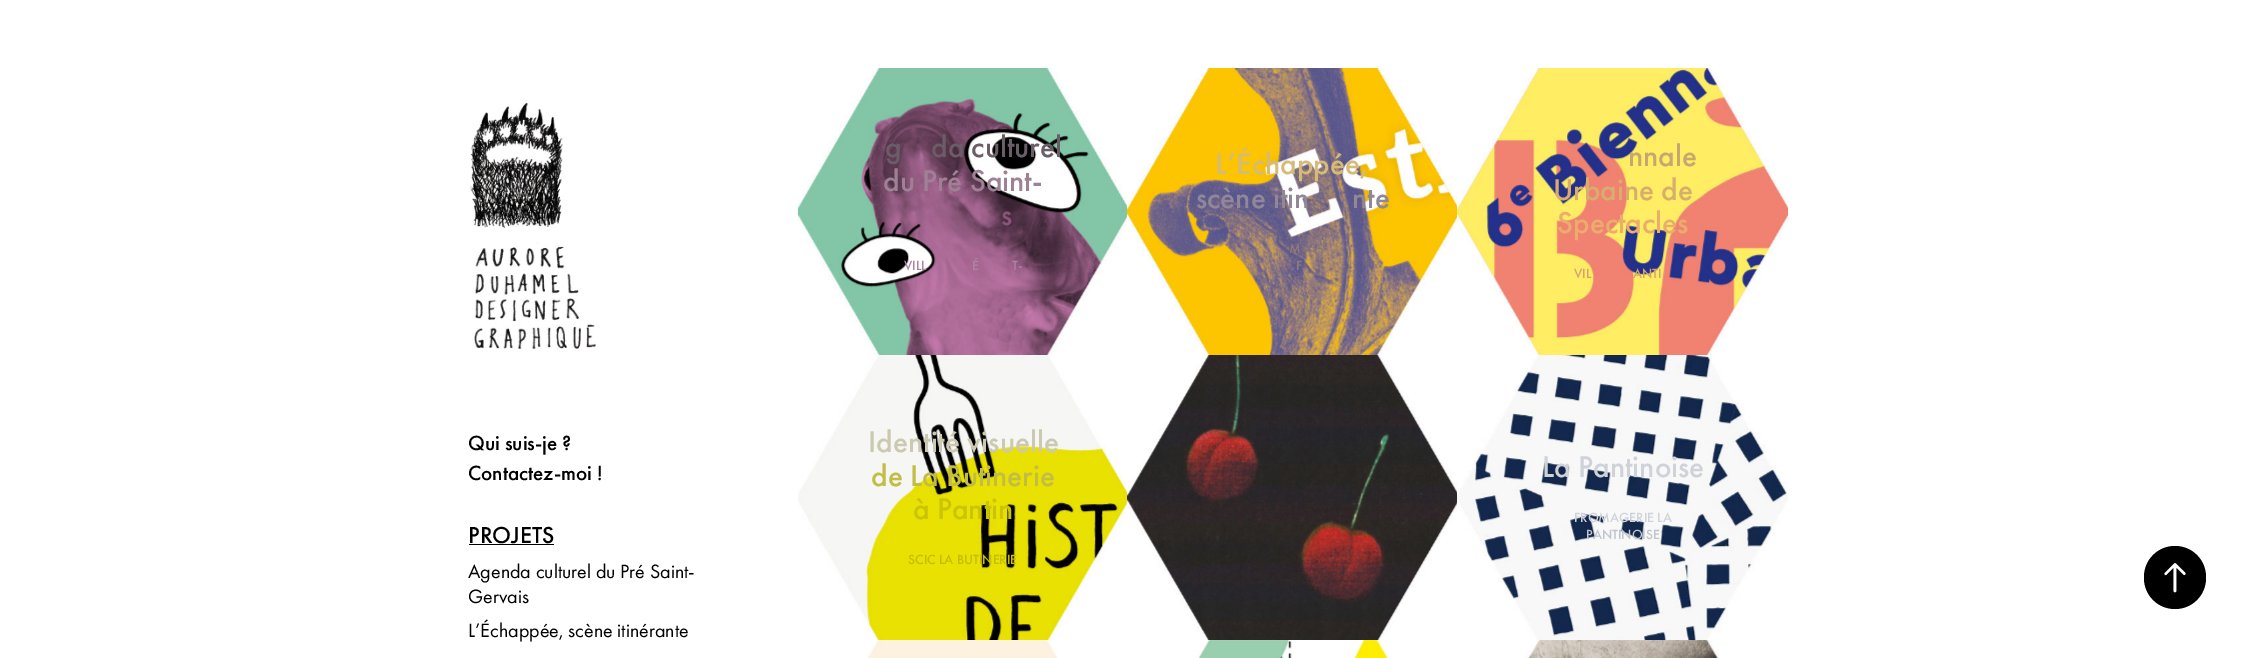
%!PS-Adobe-3.0
%%BoundingBox: 0 0 2256 658
%%LanguageLevel: 3
%%Pages: 1
%%EndComments
%%BeginProlog
/setink { 3 { 255 div 3 1 roll } repeat setrgbcolor } def
/usefont { [ exch dup neg 0 0 3 -1 roll 0 0 ] selectfont } def
/drawtext { setink usefont moveto show } def
/fillbox { setink rectfill } def
/rrect { 5 dict begin { /r /h /w /y /x } { exch def } forall
  x r add y moveto x w add y 2 copy h add r arct x w add y h add x 1 index r arct
  x y h add x y r arct x y 2 copy exch w add exch r arct closepath end } def
/drawimage { 5 dict begin { /h /w /y /x /name } { exch def } forall
  gsave x y translate w h scale
  w h 8 [w 0 0 h 0 0] name (r) file false 3 colorimage grestore end } def
%%EndProlog
%%BeginSetup
<< /PageSize [2256 658] >> setpagedevice
%%EndSetup
%%Page: 1 1
0 658 translate 1 -1 scale
4 setmiterlimit
0 0 2256 658 255 255 255 fillbox
(assets/img1.rgb) 470 102 126 247 drawimage
(Qui suis-je ?) 468 450 /FuturaPT-Medium 21.25 0 0 0 drawtext
(Contactez-moi !) 468 480 /FuturaPT-Medium 21.25 0 0 0 drawtext
(PROJETS) 468 543 /FuturaPT-Medium 24 0 0 0 drawtext
469 544 85 1 0 0 0 fillbox
(Agenda culturel du Pré Saint-) 468 578 /FuturaPT-Regular 20 0 0 0 drawtext
(Gervais) 468 603 /FuturaPT-Regular 20 0 0 0 drawtext
(L’Échappée, scène itinérante) 468 637 /FuturaPT-Regular 20 0 0 0 drawtext
(assets/img2.rgb) 798 68 329 287 drawimage
(g) 885 157 /FuturaPT-Medium 31.25 107 93 104 drawtext
(da culturel) 931 157 /FuturaPT-Medium 31.25 107 93 104 drawtext
(du Pré Saint-) 883 191 /FuturaPT-Medium 31.25 158 129 149 drawtext
(s) 1001 225 /FuturaPT-Medium 31.25 136 84 119 drawtext
(VILL) 904 270 /FuturaPT-Medium 13.75 178 130 162 drawtext
(É) 972 270 /FuturaPT-Medium 13.75 178 130 162 drawtext
(T-) 1012 270 /FuturaPT-Medium 13.75 178 130 162 drawtext
(assets/img3.rgb) 1127 68 330 287 drawimage
gsave
1169 148 247 127 rectclip
(L’Échappée,) 1215 174 /FuturaPT-Medium 31.25 213 187 119 drawtext
grestore
(scène itin) 1196 208 /FuturaPT-Medium 31.25 145 135 151 drawtext
(nte) 1352 208 /FuturaPT-Medium 31.25 145 135 151 drawtext
(M) 1289 253 /FuturaPT-Medium 13.75 147 123 115 drawtext
(F) 1296 270 /FuturaPT-Medium 13.75 147 123 115 drawtext
(assets/img4.rgb) 1457 68 331 287 drawimage
(nnale) 1628 166 /FuturaPT-Medium 31.25 199 167 111 drawtext
(Urbaine de) 1553 200 /FuturaPT-Medium 31.25 216 174 109 drawtext
(Spectacles) 1557 233 /FuturaPT-Medium 31.25 235 173 108 drawtext
(VIL) 1574 278 /FuturaPT-Medium 13.75 215 161 111 drawtext
(ANTI) 1633 278 /FuturaPT-Medium 13.75 215 161 111 drawtext
(assets/img5.rgb) 798 355 329 285 drawimage
(Identité visuelle) 868 452 /FuturaPT-Medium 31.25 203 202 177 drawtext
(de La Butinerie) 871 486 /FuturaPT-Medium 31.25 194 189 69 drawtext
(à Pantin) 913 519 /FuturaPT-Medium 31.25 203 196 2 drawtext
(SCIC LA BUTINERIE) 908 564 /FuturaPT-Medium 13.75 197 190 2 drawtext
(assets/img6.rgb) 1127 355 330 285 drawimage
(assets/img7.rgb) 1457 355 331 285 drawimage
(La Pantinoise) 1542 477 /FuturaPT-Medium 31.25 207 211 217 drawtext
(FROMAGERIE LA) 1574 522 /FuturaPT-Medium 13.75 207 211 217 drawtext
(PANTINOISE) 1586 539 /FuturaPT-Medium 13.75 191 196 205 drawtext
(assets/img8.rgb) 867 640 191 18 drawimage
(assets/img9.rgb) 1196 640 195 18 drawimage
(assets/img10.rgb) 1525 640 194 18 drawimage
0 0 0 setink
2144 546 62 63 31 rrect fill
(assets/img11.rgb) 2164 563 22 30 drawimage
showpage
%%EOF
